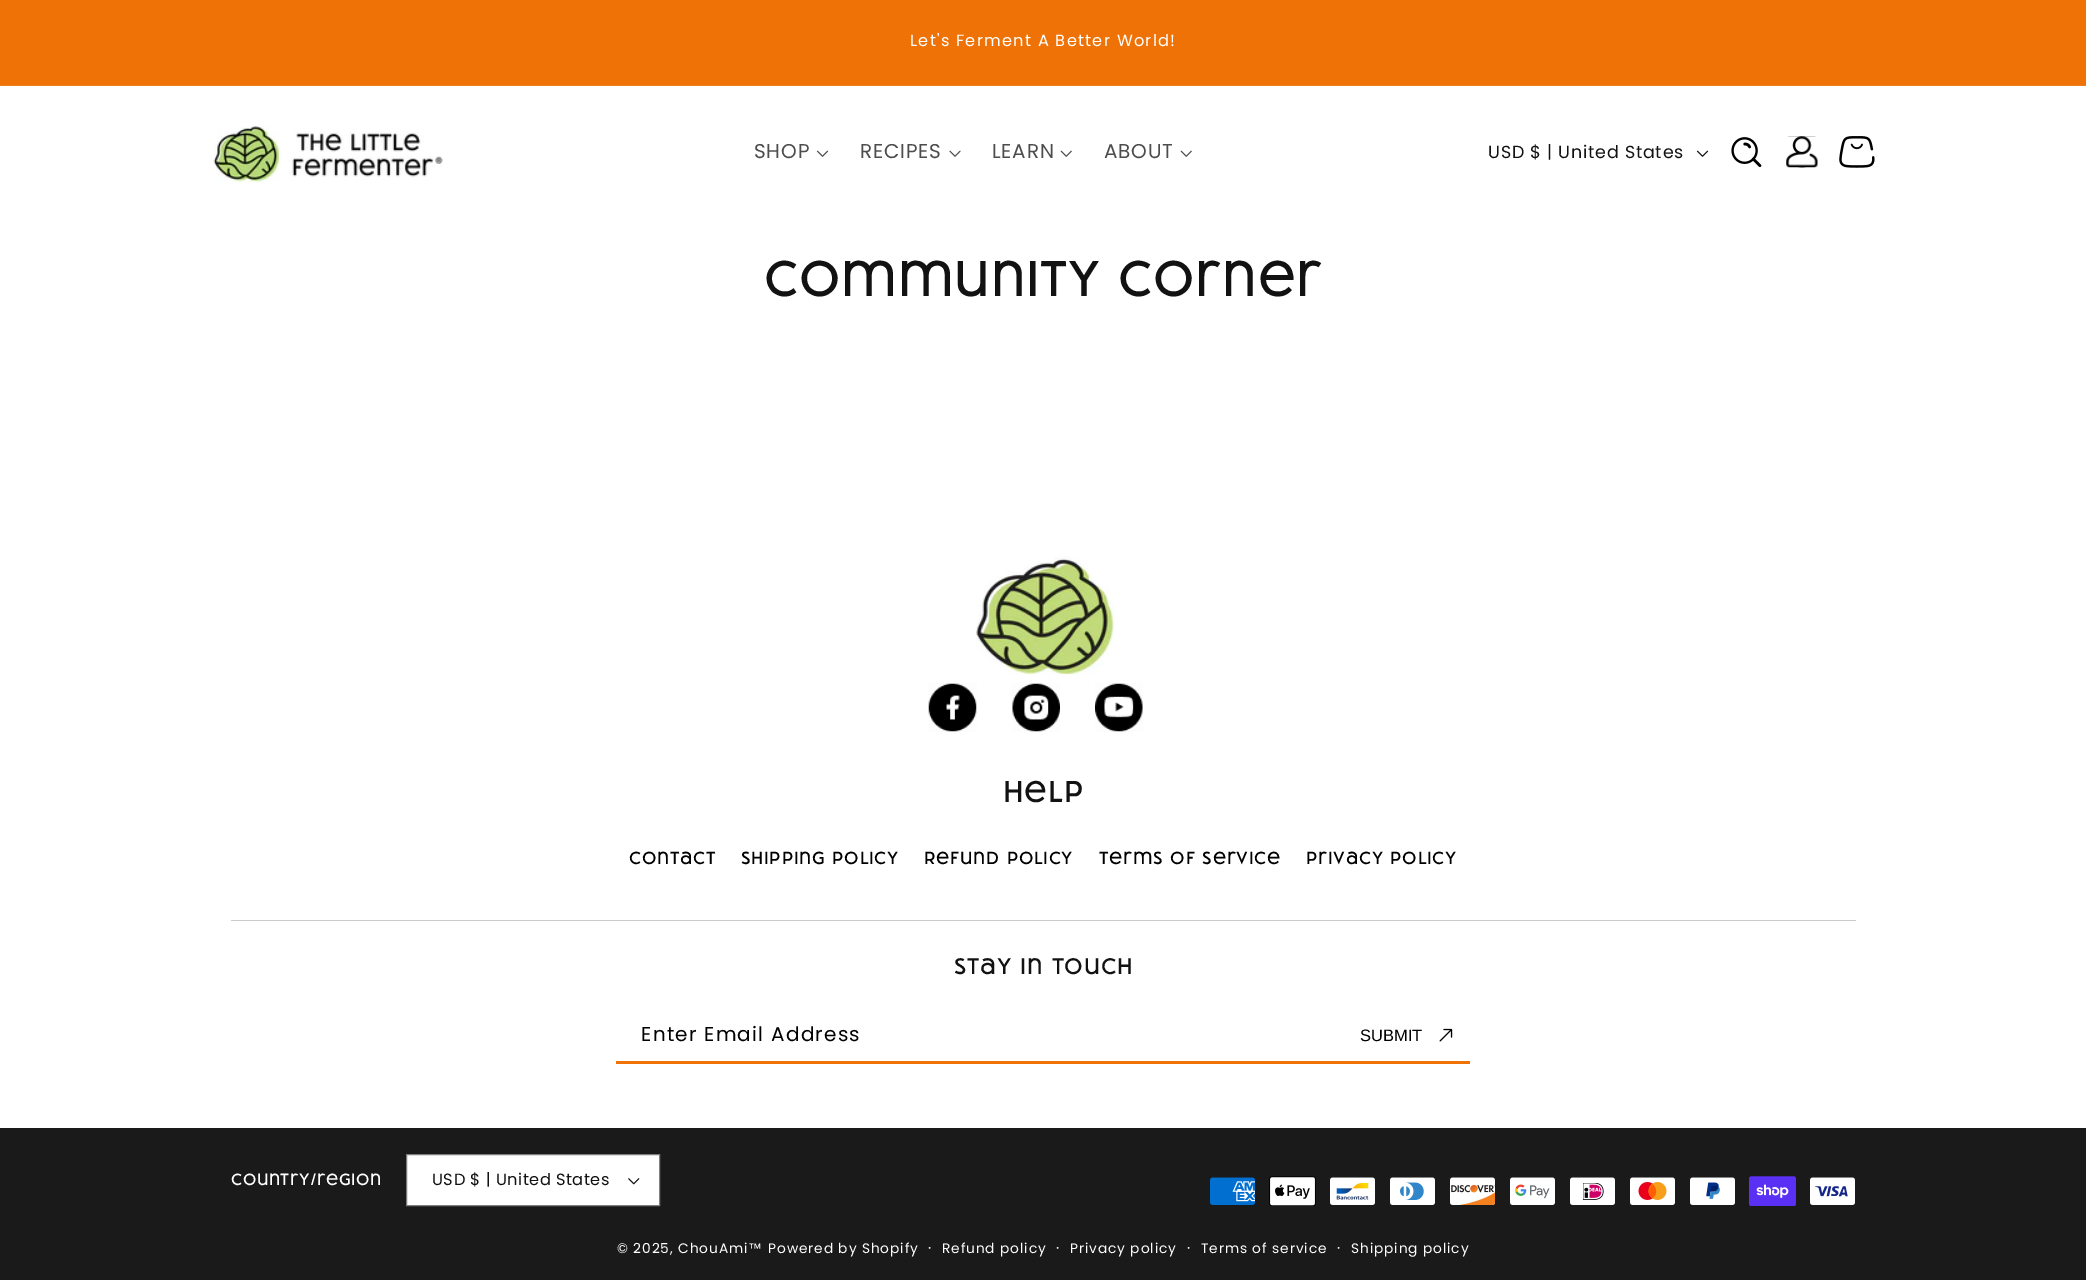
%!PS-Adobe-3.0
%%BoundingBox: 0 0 2086 1280
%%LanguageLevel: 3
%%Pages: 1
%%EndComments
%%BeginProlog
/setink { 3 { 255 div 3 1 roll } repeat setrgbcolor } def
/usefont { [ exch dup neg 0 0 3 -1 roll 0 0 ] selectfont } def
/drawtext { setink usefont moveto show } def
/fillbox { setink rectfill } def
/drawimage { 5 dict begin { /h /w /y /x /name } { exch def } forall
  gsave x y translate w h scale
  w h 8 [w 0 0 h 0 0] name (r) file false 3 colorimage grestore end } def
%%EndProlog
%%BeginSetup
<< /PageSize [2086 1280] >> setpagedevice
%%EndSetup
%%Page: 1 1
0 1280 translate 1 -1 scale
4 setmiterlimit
0 0 2086 1280 255 255 255 fillbox
0 0 2086 85 238 114 5 fillbox
0 85 2086 1 239 125 25 fillbox
/Poppins-Regular 16.25 usefont
255 255 255 setink
910 46 moveto 1.25 0 (Let's Ferment A Better World!) ashow
(assets/img1.rgb) 213 126 230 57 drawimage
/Poppins-Regular 20 usefont
77 77 77 setink
754 158 moveto 0.75 0 (SHOP) ashow
(assets/img2.rgb) 816 150 13 7 drawimage
860 158 moveto 0.75 0 (RECIPES) ashow
(assets/img3.rgb) 949 150 12 7 drawimage
992 158 moveto 0.75 0 (LEARN) ashow
(assets/img4.rgb) 1060 150 12 7 drawimage
1104 158 moveto 0.75 0 (ABOUT) ashow
(assets/img4.rgb) 1180 150 12 7 drawimage
/Poppins-Regular 17.5 usefont
18 18 18 setink
1488 158 moveto 0.75 0 (USD $ | United States) ashow
(assets/img5.rgb) 1696 150 13 7 drawimage
(assets/img6.rgb) 1731 137 31 31 drawimage
(assets/img7.rgb) 1786 136 32 32 drawimage
(assets/img8.rgb) 1839 136 36 32 drawimage
/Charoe-Bold 50 usefont
764 296 moveto 0.75 0 (Community Corner) ashow
231 920 1625 1 202 202 202 fillbox
(assets/img9.rgb) 976 556 139 119 drawimage
(assets/img10.rgb) 928 683 49 49 drawimage
(assets/img11.rgb) 1012 683 48 49 drawimage
(assets/img12.rgb) 1095 683 48 49 drawimage
/Charoe-Bold 30 usefont
18 18 18 setink
1003 802 moveto 0.75 0 (Help) ashow
/Charoe-Bold 17.5 usefont
0 0 0 setink
629 864 moveto 0.75 0 (Contact) ashow
741 864 moveto 0.75 0 (Shipping Policy) ashow
924 864 moveto 0.75 0 (Refund Policy) ashow
1099 864 moveto 0.75 0 (Terms of Service) ashow
1306 864 moveto 0.75 0 (Privacy Policy) ashow
/Charoe-Bold 22.5 usefont
18 18 18 setink
954 974 moveto 0.75 0 (Stay in touch) ashow
/Poppins-Regular 20 usefont
0 0 0 setink
641 1041 moveto 1.25 0 (Enter Email Address) ashow
(SUBMIT) 1360 1041 /LiberationSans-Regular 16.5 0 0 0 drawtext
(assets/img13.rgb) 1439 1028 14 14 drawimage
616 1061 854 3 238 114 5 fillbox
0 1128 2086 152 26 26 26 fillbox
/Charoe-Bold 16.25 usefont
255 255 255 setink
231 1185 moveto 0.5 0 (Country/region) ashow
407 1155 252 50 255 255 255 fillbox
(assets/img14.rgb) 628 1178 12 7 drawimage
125 125 125 setink
406.5 1154.5 253 51 rectstroke
/Poppins-Regular 16.25 usefont
18 18 18 setink
432 1185 moveto 0.5 0 (USD $ | United States) ashow
(assets/img15.rgb) 1210 1177 45 28 drawimage
(assets/img16.rgb) 1269 1176 47 30 drawimage
(assets/img17.rgb) 1330 1177 45 28 drawimage
(assets/img18.rgb) 1390 1177 45 28 drawimage
(assets/img19.rgb) 1450 1177 46 28 drawimage
(assets/img20.rgb) 1510 1177 45 28 drawimage
(assets/img21.rgb) 1570 1177 45 28 drawimage
(assets/img22.rgb) 1630 1177 45 28 drawimage
(assets/img23.rgb) 1690 1177 45 28 drawimage
(assets/img24.rgb) 1749 1176 47 30 drawimage
(assets/img25.rgb) 1810 1177 45 28 drawimage
/Poppins-Regular 13.75 usefont
255 255 255 setink
617 1253 moveto 0.9 0 (© 2025, ChouAmi) ashow
/LiberationSans-Regular 13.75 usefont
748 1253 moveto 0.9 0 (™) ashow
/Poppins-Regular 13.75 usefont
768 1253 moveto 0.9 0 (Powered by Shopify) ashow
/Poppins-Regular 15 usefont
928 1253 moveto 0.9 0 (·) ashow
/Poppins-Regular 13.75 usefont
942 1253 moveto 0.9 0 (Refund policy) ashow
/Poppins-Regular 15 usefont
1056 1253 moveto 0.9 0 (·) ashow
/Poppins-Regular 13.75 usefont
1070 1253 moveto 0.9 0 (Privacy policy) ashow
/Poppins-Regular 15 usefont
1187 1253 moveto 0.9 0 (·) ashow
/Poppins-Regular 13.75 usefont
1201 1253 moveto 0.9 0 (Terms of service) ashow
/Poppins-Regular 15 usefont
1337 1253 moveto 0.9 0 (·) ashow
/Poppins-Regular 13.75 usefont
1351 1253 moveto 0.9 0 (Shipping policy) ashow
showpage
%%EOF
